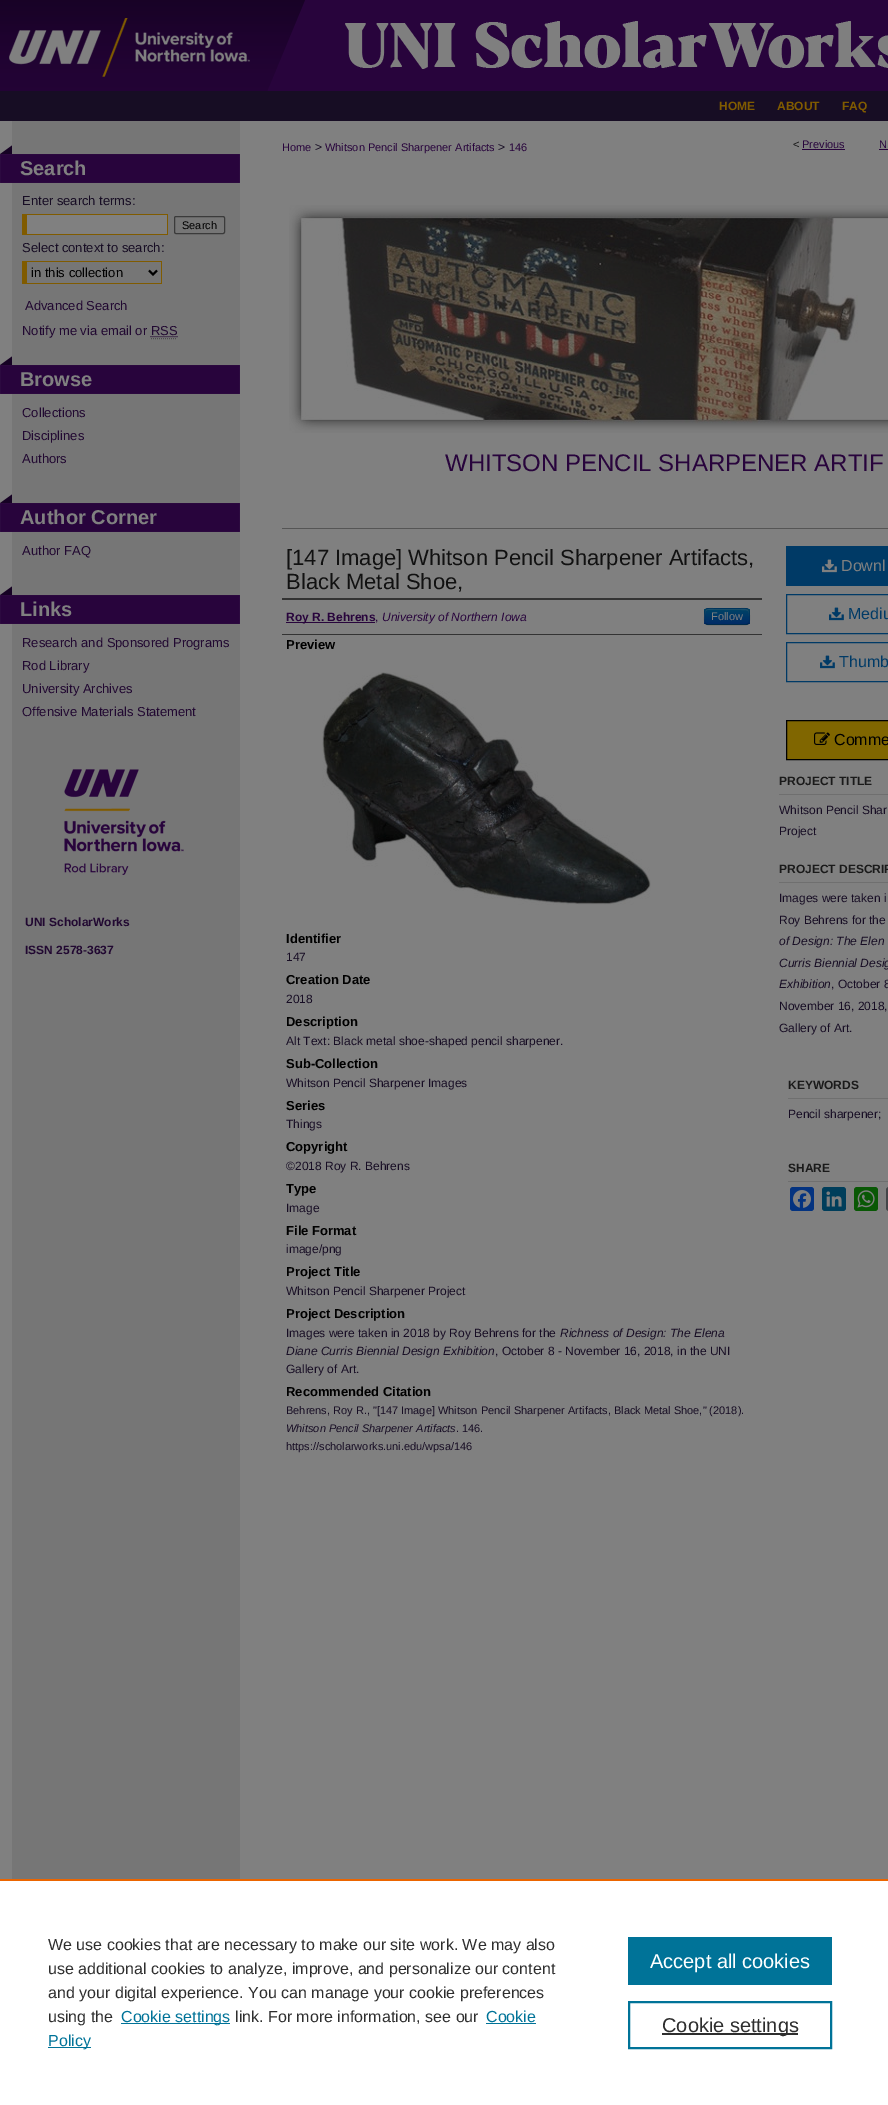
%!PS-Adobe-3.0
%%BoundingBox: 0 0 888 2105
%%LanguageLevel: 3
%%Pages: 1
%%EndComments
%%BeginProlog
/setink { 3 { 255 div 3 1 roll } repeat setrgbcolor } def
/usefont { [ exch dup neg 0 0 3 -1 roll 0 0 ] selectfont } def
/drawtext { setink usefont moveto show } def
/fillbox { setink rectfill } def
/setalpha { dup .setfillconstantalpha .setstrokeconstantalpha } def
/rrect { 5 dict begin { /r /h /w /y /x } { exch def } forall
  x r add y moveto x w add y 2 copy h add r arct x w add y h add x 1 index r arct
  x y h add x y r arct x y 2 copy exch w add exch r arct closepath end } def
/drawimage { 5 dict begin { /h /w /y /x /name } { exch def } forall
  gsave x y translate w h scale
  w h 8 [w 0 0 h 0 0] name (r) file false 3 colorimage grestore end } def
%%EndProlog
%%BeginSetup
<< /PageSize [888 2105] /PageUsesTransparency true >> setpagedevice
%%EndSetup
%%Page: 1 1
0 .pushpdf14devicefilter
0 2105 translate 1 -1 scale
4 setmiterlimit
0 0 888 2105 255 255 255 fillbox
(assets/img1.rgb) 0 91 888 30 drawimage
(assets/img2.rgb) 0 0 888 91 drawimage
(HOME) 719 110 /LiberationSans-Bold 12 128 91 0 drawtext
(ABOUT) 777 110 /LiberationSans-Bold 12 128 91 0 drawtext
(FAQ) 842 110 /LiberationSans-Bold 12 128 91 0 drawtext
(assets/img3.rgb) 0 121 888 1758 drawimage
(assets/img4.rgb) 0 145 240 38 drawimage
(Search) 20 175 /LiberationSans-Bold 20 128 128 128 drawtext
(Enter search terms:) 22 205 /LiberationSans-Regular 13 23 13 36 drawtext
27 215 140 19 128 128 128 fillbox
22 214 146 1 128 91 0 fillbox
167 214 1 21 128 91 0 fillbox
22 234 146 1 128 91 0 fillbox
22 214 5 21 128 91 0 fillbox
59 59 59 setink
174.5 216.5 50 17 1.5 rrect stroke
(Search) 182 229 /LiberationSans-Regular 11 0 0 0 drawtext
(Select context to search:) 22 252 /LiberationSans-Regular 13 23 13 36 drawtext
22 261 140 1 128 91 0 fillbox
161 261 1 23 128 91 0 fillbox
22 283 140 1 128 91 0 fillbox
22 261 5 23 128 91 0 fillbox
0 0 0 setink
2 setlinewidth
149 270.5 moveto 153 274.5 lineto 157 270.5 lineto stroke
(in this collection) 31 277 /LiberationSans-Regular 13 0 0 0 drawtext
(Advanced Search) 25 310 /LiberationSans-Regular 13 33 8 49 drawtext
(Notify me via email or RSS) 22 335 /LiberationSans-Regular 13 33 8 49 drawtext
1 setlinewidth
[1 1] 0 setdash
150.5 336.5 moveto 177.5 336.5 lineto stroke
77 77 77 setink
151 338.5 moveto 177 338.5 lineto stroke
(assets/img4.rgb) 0 356 240 38 drawimage
(Browse) 20 386 /LiberationSans-Bold 20 128 128 128 drawtext
(Collections) 22 417 /LiberationSans-Regular 13 33 8 49 drawtext
(Disciplines) 22 440 /LiberationSans-Regular 13 33 8 49 drawtext
(Authors) 22 463 /LiberationSans-Regular 13 33 8 49 drawtext
(assets/img4.rgb) 0 494 240 38 drawimage
(Author Corner) 20 524 /LiberationSans-Bold 20 128 128 128 drawtext
(Author FAQ) 22 555 /LiberationSans-Regular 13 33 8 49 drawtext
(assets/img4.rgb) 0 586 240 38 drawimage
(Links) 20 616 /LiberationSans-Bold 20 128 128 128 drawtext
(Research and Sponsored Programs) 22 647 /LiberationSans-Regular 13 33 8 49 drawtext
(Rod Library) 22 670 /LiberationSans-Regular 13 33 8 49 drawtext
(University Archives) 22 693 /LiberationSans-Regular 13 33 8 49 drawtext
(Offensive Materials Statement) 22 716 /LiberationSans-Regular 13 33 8 49 drawtext
(assets/img5.rgb) 64 769 120 106 drawimage
(UNI ScholarWorks) 25 926 /LiberationSans-Bold 12 33 8 49 drawtext
(ISSN 2578-3637) 25 954 /LiberationSans-Bold 12 33 8 49 drawtext
(Home) 282 151 /LiberationSans-Regular 11 40 4 60 drawtext
(>) 315 151 /LiberationSans-Regular 12 23 13 36 drawtext
(Whitson Pencil Sharpener Artifacts) 325 151 /LiberationSans-Regular 11 40 4 60 drawtext
(>) 498 151 /LiberationSans-Regular 12 23 13 36 drawtext
(146) 509 151 /LiberationSans-Regular 11 40 4 60 drawtext
(<) 793 148 /LiberationSans-Regular 11 17 17 17 drawtext
(Previous) 802 148 /LiberationSans-Regular 11 40 4 60 drawtext
802 149 43 1 40 4 60 fillbox
(N) 879 148 /LiberationSans-Regular 11 40 4 60 drawtext
879 149 9 1 40 4 60 fillbox
(assets/img6.rgb) 289 205 599 228 drawimage
(WHITSON PENCIL SHARPENER ARTIF) 445 471 /LiberationSans-Regular 24 40 4 60 drawtext
282 528 606 1 85 85 85 fillbox
([147 Image] Whitson Pencil Sharpener Artifacts,) 286 565 /LiberationSans-Regular 22 17 17 17 drawtext
(Black Metal Shoe,) 286 589 /LiberationSans-Regular 22 17 17 17 drawtext
282 598 480 2 51 51 51 fillbox
282 634 480 1 51 51 51 fillbox
286 622 89 1 40 4 60 fillbox
(Roy R. Behrens) 286 621 /LiberationSans-Bold 12 40 4 60 drawtext
(,) 375 621 /LiberationSans-Regular 12 40 4 60 drawtext
(University of Northern Iowa) 382 621 /LiberationSans-Italic 12 40 4 60 drawtext
0 58 102 setink
704 608 46 17 4 rrect fill
gsave
704 608 46 17 4 rrect clip newpath
gsave 704 609 moveto 750 609 lineto 750 624 lineto 704 624 lineto closepath clip newpath
<< /ShadingType 2 /ColorSpace /DeviceRGB /Coords [727 609 727 624] /Extend [true true] /Function << /FunctionType 2 /Domain [0 1] /C0 [0 0.267 0.4] /C1 [0 0.169 0.4] /N 1 >> >> shfill grestore
grestore
0.2 setalpha
128 128 128 setink
708 610 moveto 741 610 lineto 748 610 749 610 749 616 curveto 749 622 lineto 749 615 lineto 749 608 747 609 740 609 curveto 714 609 lineto 707 609 705 608 705 615 curveto 705 623 lineto 705 620 703 610 708 610 curveto closepath fill
0.25 setalpha
0 0 0 setink
[] 0 setdash
748.5 623.5 moveto 748 624 747 624.5 746 624.5 curveto 708 624.5 lineto 707 624.5 706 624 705.5 623.5 curveto stroke
0.1 setalpha
705.5 623.5 moveto 704 621.5 704.5 618.5 704.5 616.5 curveto 704.5 607.5 705 608.5 714.5 608.5 curveto 739.5 608.5 lineto 749 608.5 749.5 607.5 749.5 616.5 curveto 749.5 618.5 750 621.5 748.5 623.5 curveto stroke
1 setalpha
(Follow) 711 620 /LiberationSans-Regular 11 128 128 128 drawtext
(Preview) 286 649 /LiberationSans-Bold 13 0 0 0 drawtext
(assets/img7.rgb) 322 672 329 233 drawimage
(Identifier) 286 943 /LiberationSans-Bold 13 0 0 0 drawtext
(147) 286 961 /LiberationSans-Regular 12 23 13 36 drawtext
(Creation Date) 286 984 /LiberationSans-Bold 13 0 0 0 drawtext
(2018) 286 1003 /LiberationSans-Regular 12 23 13 36 drawtext
(Description) 286 1026 /LiberationSans-Bold 13 0 0 0 drawtext
(Alt Text: Black metal shoe-shaped pencil sharpener.) 286 1045 /LiberationSans-Regular 12 23 13 36 drawtext
(Sub-Collection) 286 1068 /LiberationSans-Bold 13 0 0 0 drawtext
(Whitson Pencil Sharpener Images) 286 1087 /LiberationSans-Regular 12 23 13 36 drawtext
(Series) 286 1110 /LiberationSans-Bold 13 0 0 0 drawtext
(Things) 286 1128 /LiberationSans-Regular 12 23 13 36 drawtext
(Copyright) 286 1151 /LiberationSans-Bold 13 0 0 0 drawtext
(©2018 Roy R. Behrens) 286 1170 /LiberationSans-Regular 12 23 13 36 drawtext
(Type) 286 1193 /LiberationSans-Bold 13 0 0 0 drawtext
(Image) 286 1212 /LiberationSans-Regular 12 23 13 36 drawtext
(File Format) 286 1235 /LiberationSans-Bold 13 0 0 0 drawtext
(image/png) 286 1253 /LiberationSans-Regular 12 23 13 36 drawtext
(Project Title) 286 1276 /LiberationSans-Bold 13 0 0 0 drawtext
(Whitson Pencil Sharpener Project) 286 1295 /LiberationSans-Regular 12 23 13 36 drawtext
(Project Description) 286 1318 /LiberationSans-Bold 13 0 0 0 drawtext
(Images were taken in 2018 by Roy Behrens for the) 286 1337 /LiberationSans-Regular 12 23 13 36 drawtext
(Richness of Design: The Elena) 560 1337 /LiberationSans-Italic 12 23 13 36 drawtext
(Diane Curris Biennial Design Exhibition) 286 1355 /LiberationSans-Italic 12 23 13 36 drawtext
(, October 8 - November 16, 2018, in the UNI) 495 1355 /LiberationSans-Regular 12 23 13 36 drawtext
(Gallery of Art.) 286 1373 /LiberationSans-Regular 12 23 13 36 drawtext
(Recommended Citation) 286 1396 /LiberationSans-Bold 13 0 0 0 drawtext
(Behrens, Roy R., "[147 Image] Whitson Pencil Sharpener Artifacts, Black Metal Shoe," \(2018\).) 286 1414 /LiberationSans-Regular 11 23 13 36 drawtext
(Whitson Pencil Sharpener Artifacts) 286 1432 /LiberationSans-Italic 11 23 13 36 drawtext
(. 146.) 456 1432 /LiberationSans-Regular 11 23 13 36 drawtext
(https://scholarworks.uni.edu/wpsa/146) 286 1450 /LiberationSans-Regular 11 23 13 36 drawtext
786 546 102 40 0 58 102 fillbox
(assets/img8.rgb) 822 559 15 14 drawimage
(Downl) 841 571 /LiberationSans-Regular 16 128 128 128 drawtext
0 58 102 setink
786.5 594.5 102 39 rectstroke
(assets/img9.rgb) 829 607 15 14 drawimage
(Mediu) 848 619 /LiberationSans-Regular 16 0 58 102 drawtext
786.5 642.5 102 39 rectstroke
(assets/img9.rgb) 820 655 15 14 drawimage
(Thumb) 839 667 /LiberationSans-Regular 16 0 58 102 drawtext
128 102 0 setink
786.5 720.5 moveto 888.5 720.5 lineto 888.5 759.5 lineto 786.5 759.5 lineto closepath gsave fill grestore
0 0 0 setink
stroke
(assets/img10.rgb) 814 732 16 13 drawimage
(Comme) 834 745 /LiberationSans-Regular 16 0 0 0 drawtext
779 794 109 1 111 111 111 fillbox
(PROJECT TITLE) 779 785 /LiberationSans-Bold 12 26 26 26 drawtext
(Whitson Pencil Shar) 779 814 /LiberationSans-Regular 12 23 13 36 drawtext
(Project) 779 835 /LiberationSans-Regular 12 23 13 36 drawtext
779 882 109 1 111 111 111 fillbox
(PROJECT DESCRIP) 779 873 /LiberationSans-Bold 12 26 26 26 drawtext
(Images were taken i) 779 902 /LiberationSans-Regular 12 23 13 36 drawtext
(Roy Behrens for the) 779 924 /LiberationSans-Regular 12 23 13 36 drawtext
(of Design: The Elen) 779 945 /LiberationSans-Italic 12 23 13 36 drawtext
(Curris Biennial Desig) 779 967 /LiberationSans-Italic 12 23 13 36 drawtext
(Exhibition) 779 988 /LiberationSans-Italic 12 23 13 36 drawtext
(, October 8) 831 988 /LiberationSans-Regular 12 23 13 36 drawtext
(November 16, 2018,) 779 1010 /LiberationSans-Regular 12 23 13 36 drawtext
(Gallery of Art.) 779 1032 /LiberationSans-Regular 12 23 13 36 drawtext
788 1098 100 1 111 111 111 fillbox
(KEYWORDS) 788 1089 /LiberationSans-Bold 12 26 26 26 drawtext
(Pencil sharpener;) 788 1118 /LiberationSans-Regular 12 23 13 36 drawtext
788 1181 100 1 111 111 111 fillbox
(SHARE) 788 1172 /LiberationSans-Bold 12 26 26 26 drawtext
4 51 128 setink
790 1187 24 24 3 rrect fill
(assets/img11.rgb) 793 1190 18 18 drawimage
0 62 91 setink
822 1187 24 24 3 rrect fill
(assets/img12.rgb) 826 1191 16 16 drawimage
9 88 5 setink
854 1187 24 24 3 rrect fill
(assets/img13.rgb) 857 1190 18 18 drawimage
68 69 72 setink
886 1187 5 24 3 rrect fill
0 1879 888 2 235 101 0 fillbox
(We use cookies that are necessary to make our site work. We may also) 48 1950 /LiberationSans-Regular 16 46 46 46 drawtext
(use additional cookies to analyze, improve, and personalize our content) 48 1974 /LiberationSans-Regular 16 46 46 46 drawtext
(and your digital experience. You can manage your cookie preferences) 48 1998 /LiberationSans-Regular 16 46 46 46 drawtext
(using the) 48 2022 /LiberationSans-Regular 16 46 46 46 drawtext
121 2023 109 1 0 115 152 fillbox
(Cookie settings) 121 2022 /LiberationSans-Regular 16 0 115 152 drawtext
(link. For more information, see our) 235 2022 /LiberationSans-Regular 16 46 46 46 drawtext
(Cookie) 486 2022 /LiberationSans-Regular 16 0 115 152 drawtext
486 2023 50 1 0 115 152 fillbox
48 2047 43 1 0 115 152 fillbox
(Policy) 48 2046 /LiberationSans-Regular 16 0 115 152 drawtext
628 1937 204 48 0 115 152 fillbox
(Accept all cookies) 650 1968 /LiberationSans-Regular 20 255 255 255 drawtext
0 115 152 setink
2 setlinewidth
629 2002 202 46 rectstroke
662 2033 136 2 46 46 46 fillbox
(Cookie settings) 662 2032 /LiberationSans-Regular 20 46 46 46 drawtext
.poppdf14devicefilter showpage
%%EOF
